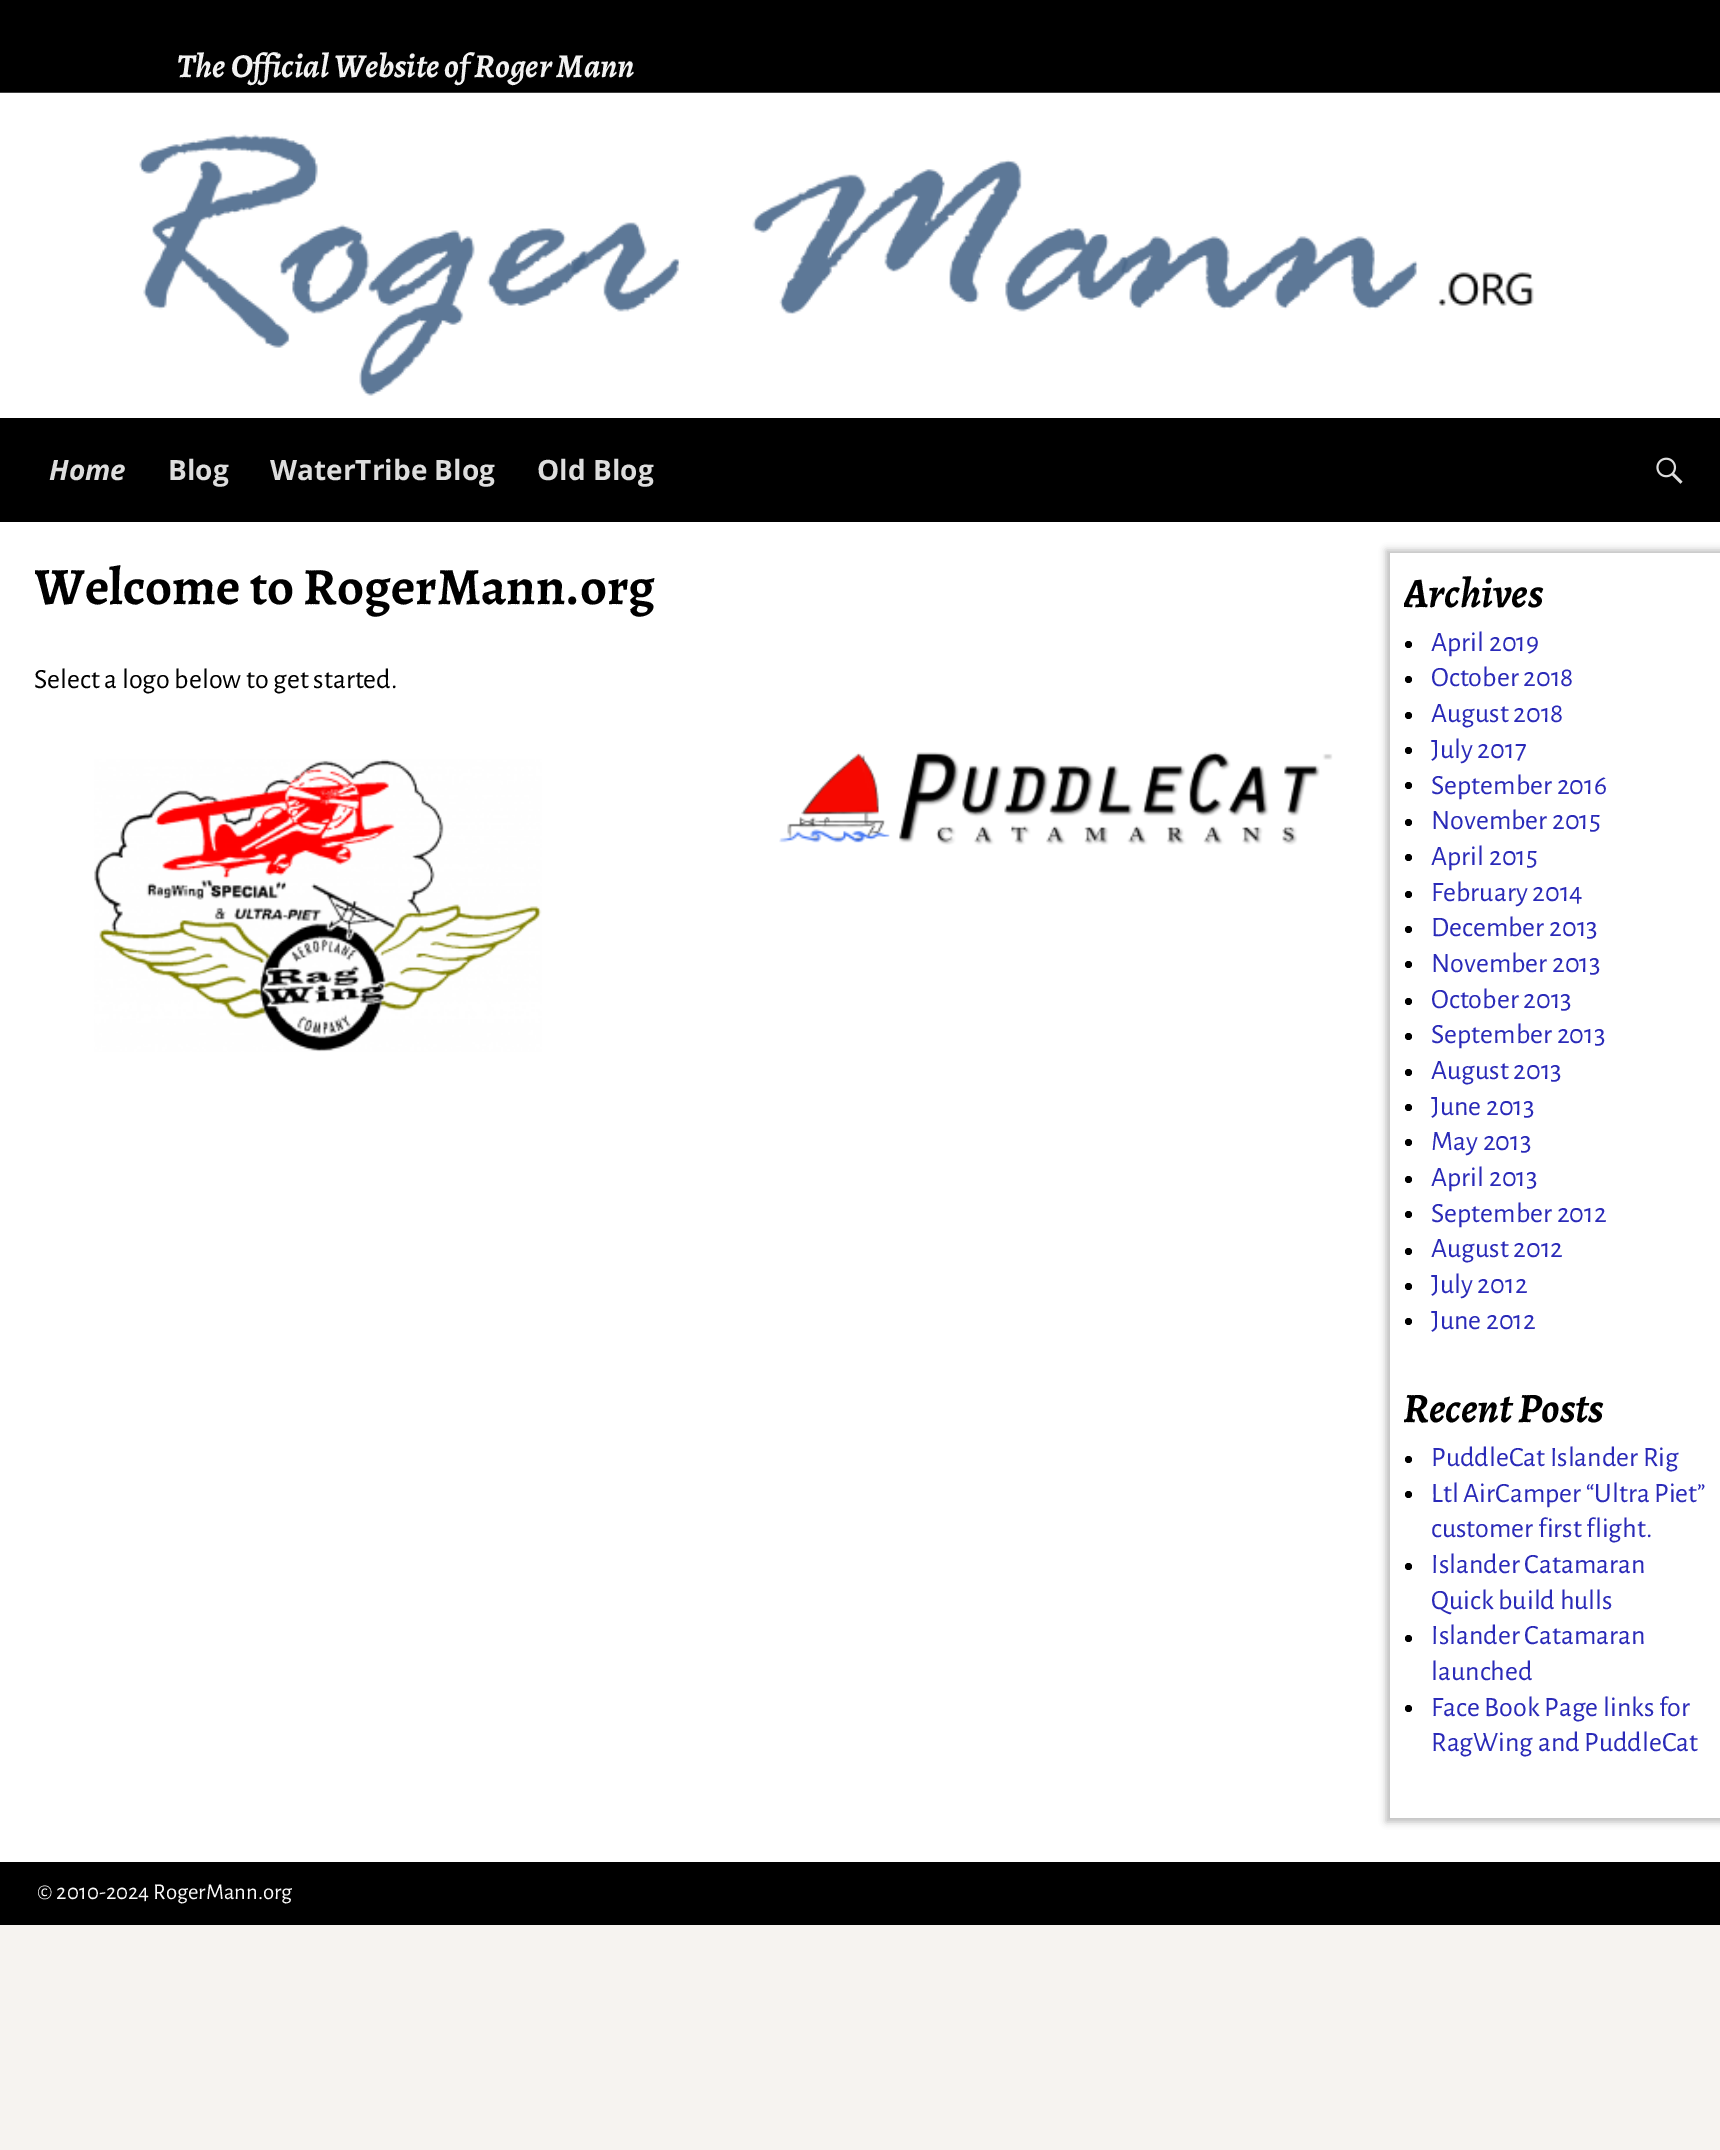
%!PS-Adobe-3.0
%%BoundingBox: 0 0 1720 2150
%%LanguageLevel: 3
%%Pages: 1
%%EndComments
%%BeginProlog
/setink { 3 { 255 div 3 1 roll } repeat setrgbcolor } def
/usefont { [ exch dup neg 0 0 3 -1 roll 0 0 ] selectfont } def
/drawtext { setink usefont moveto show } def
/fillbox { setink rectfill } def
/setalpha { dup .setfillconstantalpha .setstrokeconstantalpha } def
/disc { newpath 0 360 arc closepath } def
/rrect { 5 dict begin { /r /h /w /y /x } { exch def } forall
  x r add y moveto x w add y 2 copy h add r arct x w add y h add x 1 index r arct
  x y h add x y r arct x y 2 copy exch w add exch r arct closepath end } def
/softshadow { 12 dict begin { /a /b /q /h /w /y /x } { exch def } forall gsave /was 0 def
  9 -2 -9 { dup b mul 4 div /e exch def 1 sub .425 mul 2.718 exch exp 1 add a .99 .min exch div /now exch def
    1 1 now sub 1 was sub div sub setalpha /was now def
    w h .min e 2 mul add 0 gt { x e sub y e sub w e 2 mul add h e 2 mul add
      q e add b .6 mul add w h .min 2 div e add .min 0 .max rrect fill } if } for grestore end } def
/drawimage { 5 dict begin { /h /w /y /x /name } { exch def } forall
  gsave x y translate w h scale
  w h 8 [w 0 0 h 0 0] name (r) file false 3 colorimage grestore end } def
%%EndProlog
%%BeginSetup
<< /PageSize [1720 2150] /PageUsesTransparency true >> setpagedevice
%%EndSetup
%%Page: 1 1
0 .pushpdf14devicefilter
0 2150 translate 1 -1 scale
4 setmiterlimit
0 0 1720 2150 246 243 240 fillbox
0 522 1720 1340 255 255 255 fillbox
0 0 1720 93 0 0 0 fillbox
(The Official Website of Roger Mann) 177 77 /Alegreya-BoldItalic 33.6 242 242 242 drawtext
(assets/img1.rgb) 0 92 1720 326 drawimage
0 418 1720 104 0 0 0 fillbox
(Home) 49 480 /OpenSans-BoldItalic 28 221 221 221 drawtext
(Blog) 168 480 /OpenSans-Bold 28 221 221 221 drawtext
(WaterTribe Blog) 270 480 /OpenSans-Bold 28 221 221 221 drawtext
(Old Blog) 537 480 /OpenSans-Bold 28 221 221 221 drawtext
(assets/img2.rgb) 1656 457 27 27 drawimage
gsave
35 546 1307 595 rectclip
(Welcome to RogerMann.org) 34 604 /Alegreya-Bold 52.5 0 0 0 drawtext
grestore
(Select a logo below to get started.) 34 688 /AlegreyaSans-Regular 28 0 0 0 drawtext
(assets/img3.rgb) 94 759 448 293 drawimage
(assets/img4.rgb) 779 752 554 93 drawimage
gsave
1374 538 moveto 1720 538 lineto 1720 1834 lineto 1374 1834 lineto closepath 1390 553 moveto 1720 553 lineto 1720 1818 lineto 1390 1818 lineto closepath eoclip newpath
1386 550 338 1272 0 3.5 0.25 softshadow
grestore
gsave
1404 567 302 816 rectclip
(Archives) 1403 607 /Alegreya-BoldItalic 42 0 0 0 drawtext
grestore
1408.5 644.5 3.5 disc fill
(April 2019) 1431 651 /AlegreyaSans-Regular 28 42 42 184 drawtext
0 0 0 setink
1408.5 679.5 3.5 disc fill
(October 2018) 1431 686 /AlegreyaSans-Regular 28 42 42 184 drawtext
0 0 0 setink
1408.5 715.5 3.5 disc fill
(August 2018) 1431 722 /AlegreyaSans-Regular 28 42 42 184 drawtext
0 0 0 setink
1408.5 750.5 3.5 disc fill
(July 2017) 1431 758 /AlegreyaSans-Regular 28 42 42 184 drawtext
0 0 0 setink
1408.5 785.5 3.5 disc fill
(September 2016) 1431 794 /AlegreyaSans-Regular 28 42 42 184 drawtext
0 0 0 setink
1408.5 822.5 3.5 disc fill
(November 2015) 1431 829 /AlegreyaSans-Regular 28 42 42 184 drawtext
0 0 0 setink
1408.5 857.5 3.5 disc fill
(April 2015) 1431 865 /AlegreyaSans-Regular 28 42 42 184 drawtext
0 0 0 setink
1408.5 894.5 3.5 disc fill
(February 2014) 1431 901 /AlegreyaSans-Regular 28 42 42 184 drawtext
0 0 0 setink
1408.5 929.5 3.5 disc fill
(December 2013) 1431 936 /AlegreyaSans-Regular 28 42 42 184 drawtext
0 0 0 setink
1408.5 964.5 3.5 disc fill
(November 2013) 1431 972 /AlegreyaSans-Regular 28 42 42 184 drawtext
0 0 0 setink
1408.5 1001.5 3.5 disc fill
(October 2013) 1431 1008 /AlegreyaSans-Regular 28 42 42 184 drawtext
0 0 0 setink
1408.5 1036.5 3.5 disc fill
(September 2013) 1431 1043 /AlegreyaSans-Regular 28 42 42 184 drawtext
0 0 0 setink
1408.5 1072.5 3.5 disc fill
(August 2013) 1431 1079 /AlegreyaSans-Regular 28 42 42 184 drawtext
0 0 0 setink
1408.5 1107.5 3.5 disc fill
(June 2013) 1431 1115 /AlegreyaSans-Regular 28 42 42 184 drawtext
0 0 0 setink
1408.5 1142.5 3.5 disc fill
(May 2013) 1431 1150 /AlegreyaSans-Regular 28 42 42 184 drawtext
0 0 0 setink
1408.5 1179.5 3.5 disc fill
(April 2013) 1431 1186 /AlegreyaSans-Regular 28 42 42 184 drawtext
0 0 0 setink
1408.5 1214.5 3.5 disc fill
(September 2012) 1431 1222 /AlegreyaSans-Regular 28 42 42 184 drawtext
0 0 0 setink
1408.5 1251.5 3.5 disc fill
(August 2012) 1431 1257 /AlegreyaSans-Regular 28 42 42 184 drawtext
0 0 0 setink
1408.5 1286.5 3.5 disc fill
(July 2012) 1431 1293 /AlegreyaSans-Regular 28 42 42 184 drawtext
0 0 0 setink
1408.5 1321.5 3.5 disc fill
(June 2012) 1431 1329 /AlegreyaSans-Regular 28 42 42 184 drawtext
gsave
1404 1383 302 421 rectclip
(Recent Posts) 1403 1422 /Alegreya-BoldItalic 42 0 0 0 drawtext
grestore
0 0 0 setink
1408.5 1459.5 3.5 disc fill
(PuddleCat Islander Rig) 1431 1466 /AlegreyaSans-Regular 28 42 42 184 drawtext
0 0 0 setink
1408.5 1494.5 3.5 disc fill
(Ltl AirCamper “Ultra Piet”) 1431 1502 /AlegreyaSans-Regular 28 42 42 184 drawtext
(customer first flight.) 1431 1537 /AlegreyaSans-Regular 28 42 42 184 drawtext
0 0 0 setink
1408.5 1566.5 3.5 disc fill
(Islander Catamaran) 1431 1573 /AlegreyaSans-Regular 28 42 42 184 drawtext
(Quick build hulls) 1431 1609 /AlegreyaSans-Regular 28 42 42 184 drawtext
0 0 0 setink
1408.5 1638.5 3.5 disc fill
(Islander Catamaran) 1431 1644 /AlegreyaSans-Regular 28 42 42 184 drawtext
(launched) 1431 1680 /AlegreyaSans-Regular 28 42 42 184 drawtext
0 0 0 setink
1408.5 1708.5 3.5 disc fill
(Face Book Page links for) 1431 1716 /AlegreyaSans-Regular 28 42 42 184 drawtext
(RagWing and PuddleCat) 1431 1751 /AlegreyaSans-Regular 28 42 42 184 drawtext
0 1862 1720 63 0 0 0 fillbox
(© 2010-2024 RogerMann.org) 37 1899 /AlegreyaSans-Regular 22.75 249 249 249 drawtext
.poppdf14devicefilter showpage
%%EOF
